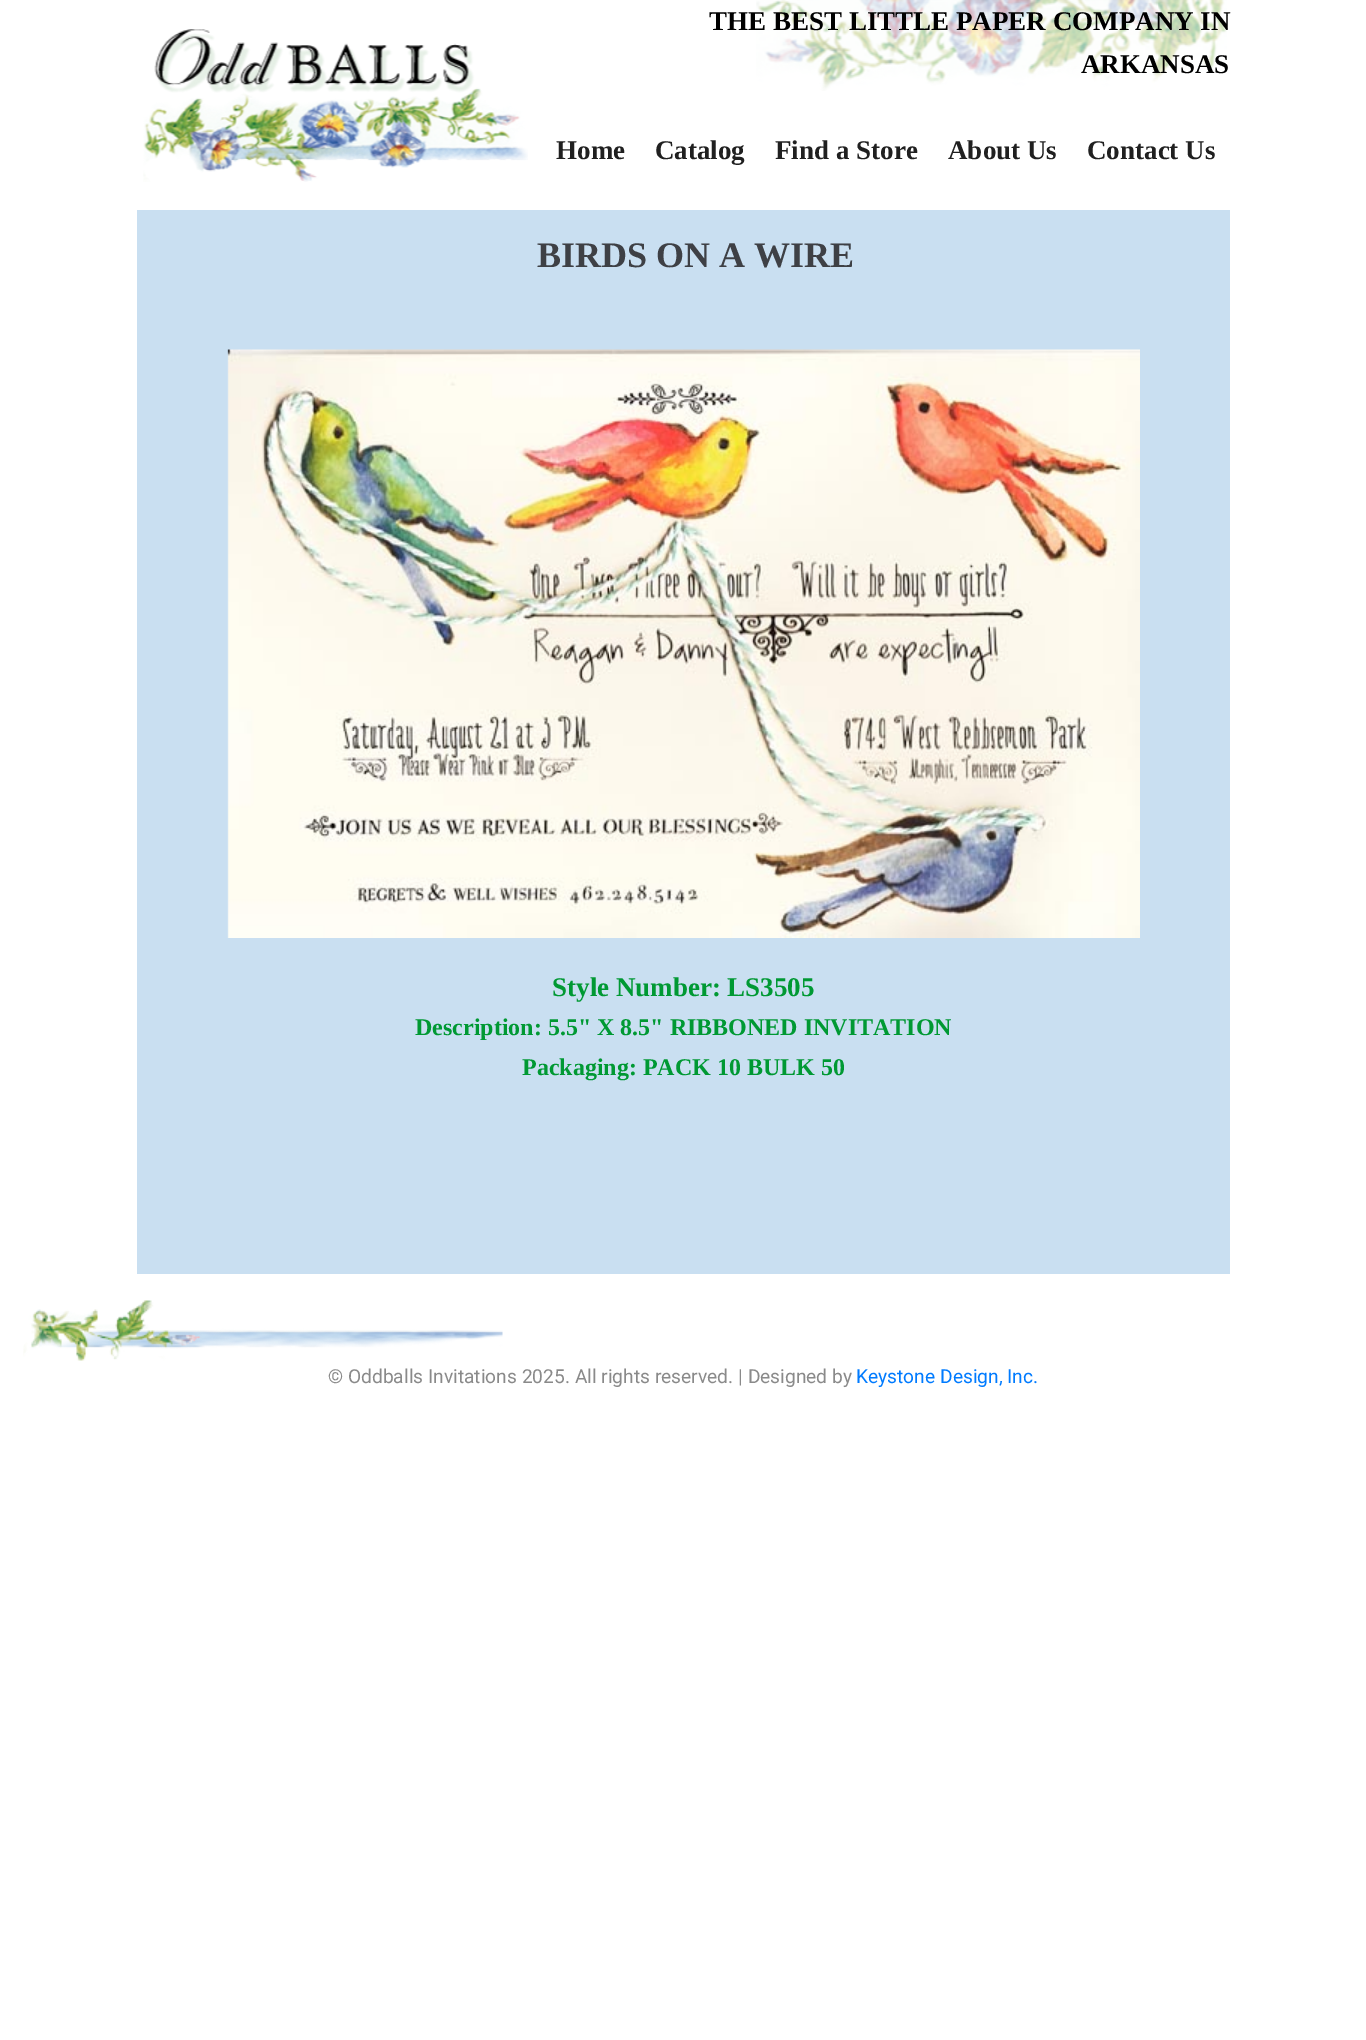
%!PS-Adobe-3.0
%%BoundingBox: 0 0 1366 2040
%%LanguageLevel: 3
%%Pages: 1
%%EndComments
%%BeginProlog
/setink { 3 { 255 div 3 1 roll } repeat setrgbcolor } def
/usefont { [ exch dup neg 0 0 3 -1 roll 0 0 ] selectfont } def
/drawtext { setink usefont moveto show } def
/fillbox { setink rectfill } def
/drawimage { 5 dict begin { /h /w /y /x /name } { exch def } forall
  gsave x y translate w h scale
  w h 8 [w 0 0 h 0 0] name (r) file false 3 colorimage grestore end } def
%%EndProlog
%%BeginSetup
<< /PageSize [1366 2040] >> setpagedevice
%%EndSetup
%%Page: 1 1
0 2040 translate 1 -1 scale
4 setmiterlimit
0 0 1366 2040 255 255 255 fillbox
(assets/img1.rgb) 756 0 471 91 drawimage
(THE BEST LITTLE PAPER COMPANY IN) 709 30 /LiberationSerif-Bold 27 0 0 0 drawtext
(ARKANSAS) 1081 73 /LiberationSerif-Bold 27 0 0 0 drawtext
(assets/img2.rgb) 143 29 385 153 drawimage
(Home) 556 159 /LiberationSerif-Bold 27 32 32 32 drawtext
(Catalog) 655 159 /LiberationSerif-Bold 27 32 32 32 drawtext
(Find a Store) 775 159 /LiberationSerif-Bold 27 32 32 32 drawtext
(About Us) 948 159 /LiberationSerif-Bold 27 32 32 32 drawtext
(Contact Us) 1087 159 /LiberationSerif-Bold 27 32 32 32 drawtext
137 210 1093 104 201 223 241 fillbox
(BIRDS ON A WIRE) 537 267 /LiberationSerif-Bold 36 62 64 69 drawtext
137 314 1093 960 201 223 241 fillbox
(assets/img3.rgb) 227 349 913 589 drawimage
(Style Number: LS3505) 552 996 /LiberationSerif-Bold 27 0 153 51 drawtext
(Description: 5.5" X 8.5" RIBBONED INVITATION) 415 1035 /LiberationSerif-Bold 24 0 153 51 drawtext
(Packaging: PACK 10 BULK 50) 522 1075 /LiberationSerif-Bold 24 0 153 51 drawtext
(assets/img4.rgb) 23 1300 480 61 drawimage
(© Oddballs Invitations 2025. All rights reserved. | Designed by) 328 1383 /Roboto-Regular 19.2 138 138 138 drawtext
(Keystone Design, Inc.) 856 1383 /Roboto-Regular 19.2 0 123 255 drawtext
showpage
%%EOF
